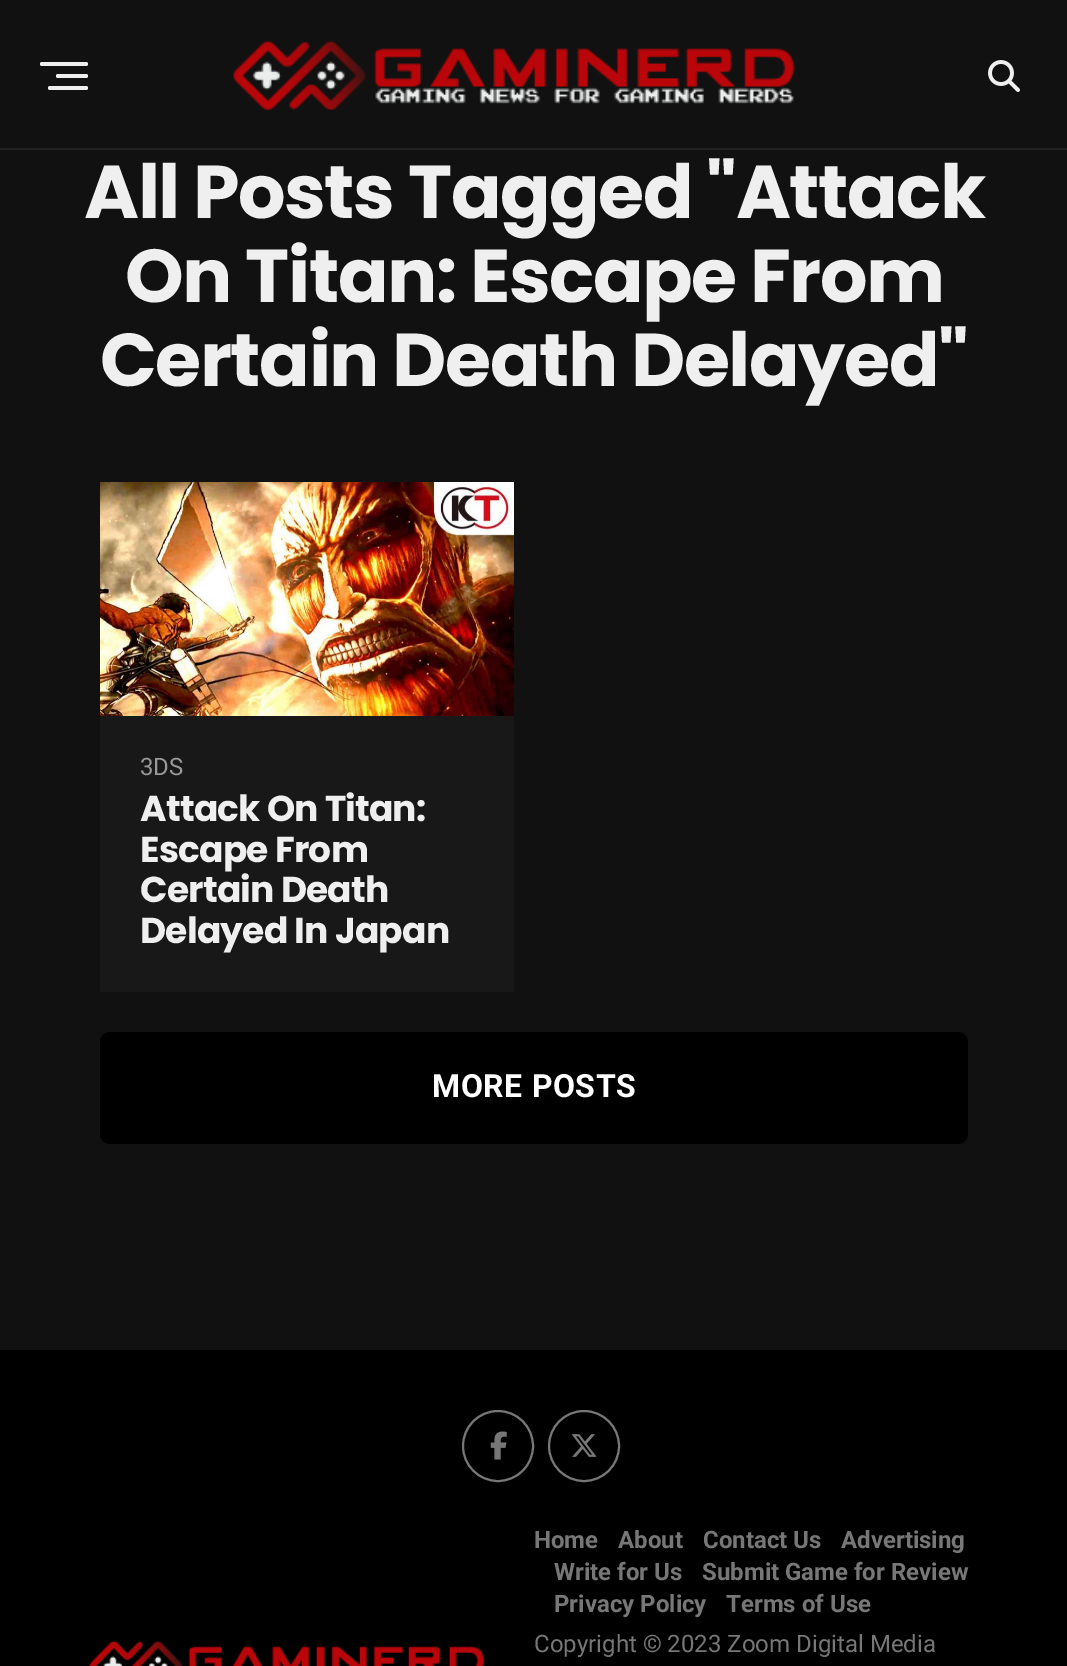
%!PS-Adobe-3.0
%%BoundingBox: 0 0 1067 1666
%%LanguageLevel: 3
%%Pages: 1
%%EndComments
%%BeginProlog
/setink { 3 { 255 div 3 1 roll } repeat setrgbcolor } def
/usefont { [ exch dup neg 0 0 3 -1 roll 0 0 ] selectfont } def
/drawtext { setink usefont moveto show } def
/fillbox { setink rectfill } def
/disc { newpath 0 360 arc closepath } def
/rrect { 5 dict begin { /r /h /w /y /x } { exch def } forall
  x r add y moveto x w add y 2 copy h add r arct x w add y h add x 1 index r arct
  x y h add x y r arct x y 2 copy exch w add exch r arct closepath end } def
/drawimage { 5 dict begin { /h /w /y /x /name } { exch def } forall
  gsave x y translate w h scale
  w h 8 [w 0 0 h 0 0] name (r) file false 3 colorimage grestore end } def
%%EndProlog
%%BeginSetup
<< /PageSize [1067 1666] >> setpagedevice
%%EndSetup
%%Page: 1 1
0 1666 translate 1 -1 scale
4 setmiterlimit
0 0 1067 1666 17 17 17 fillbox
0 148 1067 2 34 34 34 fillbox
239 239 239 setink
40 62 48 4 2 rrect fill
56 74 32 4 2 rrect fill
48 86 40 4 2 rrect fill
(assets/img1.rgb) 233 40 562 71 drawimage
(assets/img2.rgb) 988 60 32 32 drawimage
/Poppins-Bold 74.75 usefont
84 218 moveto -1.5 0 (All Posts Tagged "Attack) ashow
125 302 moveto -1.5 0 (On Titan: Escape From) ashow
100 386 moveto -1.5 0 (Certain Death Delayed") ashow
100 716 414 276 24 24 24 fillbox
(assets/img3.rgb) 100 482 414 234 drawimage
(3DS) 140 775 /Roboto-Regular 24 153 153 153 drawtext
/Poppins-Bold 36 usefont
239 239 239 setink
140 821 moveto -0.75 0 (Attack On Titan:) ashow
140 862 moveto -0.75 0 (Escape From) ashow
140 902 moveto -0.75 0 (Certain Death) ashow
140 943 moveto -0.75 0 (Delayed In Japan) ashow
0 0 0 setink
100 1032 868 112 10 rrect fill
/Roboto-Bold 32 usefont
255 255 255 setink
432 1097 moveto 0.6 0 (MORE POSTS) ashow
0 1350 1067 316 0 0 0 fillbox
119 119 119 setink
2 setlinewidth
498 1446 35 disc stroke
(assets/img4.rgb) 490 1431 17 29 drawimage
584 1446 35 disc stroke
(assets/img5.rgb) 571 1434 26 23 drawimage
(assets/img6.rgb) 89 1640 396 26 drawimage
(Home) 534 1548 /Roboto-Bold 24 119 119 119 drawtext
(About) 618 1548 /Roboto-Bold 24 119 119 119 drawtext
(Contact Us) 703 1548 /Roboto-Bold 24 119 119 119 drawtext
(Advertising) 841 1548 /Roboto-Bold 24 119 119 119 drawtext
(Write for Us) 554 1580 /Roboto-Bold 24 119 119 119 drawtext
(Submit Game for Review) 702 1580 /Roboto-Bold 24 119 119 119 drawtext
(Privacy Policy) 554 1612 /Roboto-Bold 24 119 119 119 drawtext
(Terms of Use) 726 1612 /Roboto-Bold 24 119 119 119 drawtext
(Copyright © 2023 Zoom Digital Media) 534 1652 /Roboto-Regular 24 119 119 119 drawtext
showpage
%%EOF
